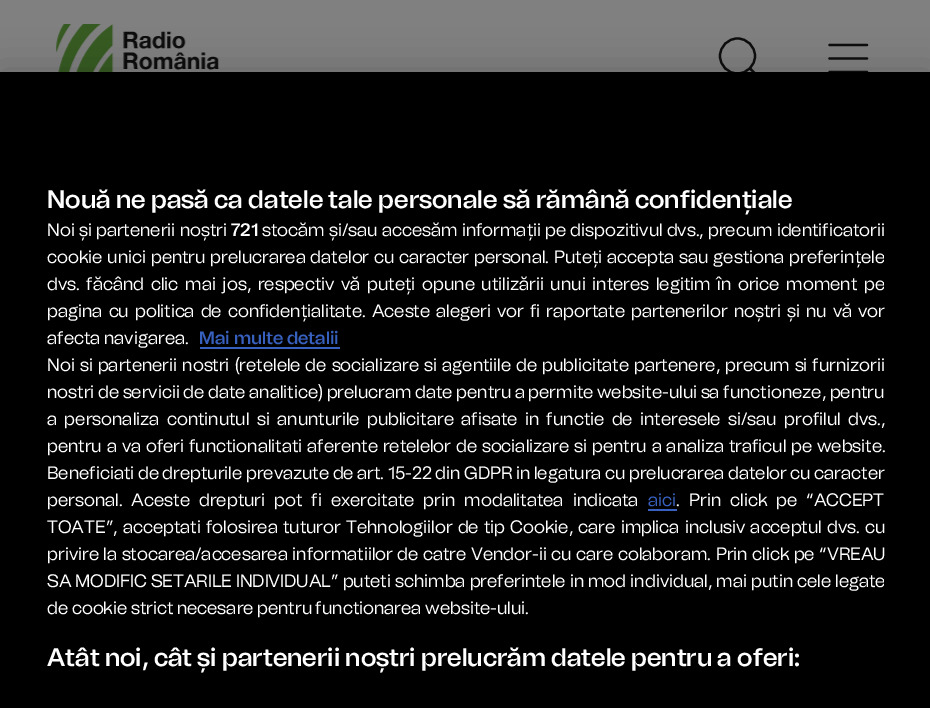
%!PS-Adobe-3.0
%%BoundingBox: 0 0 930 708
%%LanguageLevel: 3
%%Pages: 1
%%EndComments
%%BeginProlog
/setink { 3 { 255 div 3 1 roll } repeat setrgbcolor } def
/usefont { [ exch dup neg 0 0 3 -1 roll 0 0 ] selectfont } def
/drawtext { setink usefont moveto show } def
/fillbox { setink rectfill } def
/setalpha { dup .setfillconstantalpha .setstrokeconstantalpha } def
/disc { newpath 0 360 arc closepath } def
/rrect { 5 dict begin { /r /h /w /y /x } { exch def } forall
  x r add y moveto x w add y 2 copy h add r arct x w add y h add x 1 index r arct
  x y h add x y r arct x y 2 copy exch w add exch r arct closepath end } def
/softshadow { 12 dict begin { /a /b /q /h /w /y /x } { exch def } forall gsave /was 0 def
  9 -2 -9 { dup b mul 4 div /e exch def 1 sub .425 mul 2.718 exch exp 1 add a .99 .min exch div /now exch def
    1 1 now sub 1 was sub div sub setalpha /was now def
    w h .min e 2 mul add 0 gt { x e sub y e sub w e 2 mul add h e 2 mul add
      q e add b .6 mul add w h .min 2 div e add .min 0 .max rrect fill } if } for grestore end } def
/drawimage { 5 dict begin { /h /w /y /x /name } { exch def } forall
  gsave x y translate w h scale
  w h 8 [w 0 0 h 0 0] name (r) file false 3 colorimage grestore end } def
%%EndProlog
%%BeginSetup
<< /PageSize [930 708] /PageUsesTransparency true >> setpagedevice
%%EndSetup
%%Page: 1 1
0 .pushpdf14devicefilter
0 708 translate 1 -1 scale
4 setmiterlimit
0 0 930 708 128 128 128 fillbox
(assets/img1.rgb) 56 24 164 48 drawimage
13 13 13 setink
2.2 setlinewidth
737.5 56 17.5 disc stroke
1 setlinecap
1 setlinejoin
750 68.5 moveto 760.5 79 lineto stroke
829.5 58.5 moveto 867 58.5 lineto 829.5 45 moveto 867 45 lineto 829.5 72 moveto 867 72 lineto stroke
0 0 0 setink
0 72 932 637 0 20 0.2 softshadow
0 72 930 636 0 0 0 fillbox
(Nouă ne pasă ca datele tale personale să rămână confidențiale) 47 208 /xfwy-SemiBold 25.2 255 255 255 drawtext
/xfwy-Regular 18 usefont
47 236 moveto 0.5 0 32 (Noi și partenerii noștri) widthshow
(721) 231 236 /xfwy-SemiBold 18 255 255 255 drawtext
/xfwy-Regular 18 usefont
262 236 moveto 0.5 0 32 (stocăm și/sau accesăm informații pe dispozitivul dvs., precum identificatorii) widthshow
gsave
47 180 837 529 rectclip
47 263 moveto 1.1 0 32 (cookie unici pentru prelucrarea datelor cu caracter personal. Puteți accepta sau gestiona preferințele) widthshow
47 290 moveto 3.1 0 32 (dvs. făcând clic mai jos, respectiv vă puteți opune utilizării unui interes legitim în orice moment pe) widthshow
grestore
47 317 moveto 2.4 0 32 (pagina cu politica de confidențialitate. Aceste alegeri vor fi raportate partenerilor noștri și nu vă vor) widthshow
(afecta navigarea.) 47 344 /xfwy-Regular 18 255 255 255 drawtext
(Mai multe detalii) 199 344 /xfwy-SemiBold 18 56 96 190 drawtext
200 347 140 2 56 96 190 fillbox
/xfwy-Regular 18 usefont
255 255 255 setink
47 371 moveto 1.4 0 32 (Noi si partenerii nostri \(retelele de socializare si agentiile de publicitate partenere, precum si furnizorii) widthshow
(nostri de servicii de date analitice\) prelucram date pentru a permite website-ului sa functioneze, pentru) 47 398 /xfwy-Regular 18 255 255 255 drawtext
47 425 moveto 3.75 0 32 (a personaliza continutul si anunturile publicitare afisate in functie de interesele si/sau profilul dvs.,) widthshow
47 452 moveto 1.2 0 32 (pentru a va oferi functionalitati aferente retelelor de socializare si pentru a analiza traficul pe website.) widthshow
(Beneficiati de drepturile prevazute de art. 15-22 din GDPR in legatura cu prelucrarea datelor cu caracter) 47 479 /xfwy-Regular 18 255 255 255 drawtext
47 506 moveto 5.5 0 32 (personal. Aceste drepturi pot fi exercitate prin modalitatea indicata) widthshow
(aici) 648 506 /xfwy-Regular 18 56 96 190 drawtext
648 509 29 2 56 96 190 fillbox
255 255 255 setink
676 506 moveto 5.5 0 32 (. Prin click pe “ACCEPT) widthshow
47 533 moveto 1.6 0 32 (TOATE”, acceptati folosirea tuturor Tehnologiilor de tip Cookie, care implica inclusiv acceptul dvs. cu) widthshow
47 560 moveto 0.9 0 32 (privire la stocarea/accesarea informatiilor de catre Vendor-ii cu care colaboram. Prin click pe “VREAU) widthshow
gsave
47 180 837 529 rectclip
47 587 moveto 0.5 0 32 (SA MODIFIC SETARILE INDIVIDUAL” puteti schimba preferintele in mod individual, mai putin cele legate) widthshow
grestore
(de cookie strict necesare pentru functionarea website-ului.) 47 614 /xfwy-Regular 18 255 255 255 drawtext
(Atât noi, cât și partenerii noștri prelucrăm datele pentru a oferi:) 47 666 /xfwy-SemiBold 25.2 255 255 255 drawtext
.poppdf14devicefilter showpage
%%EOF
